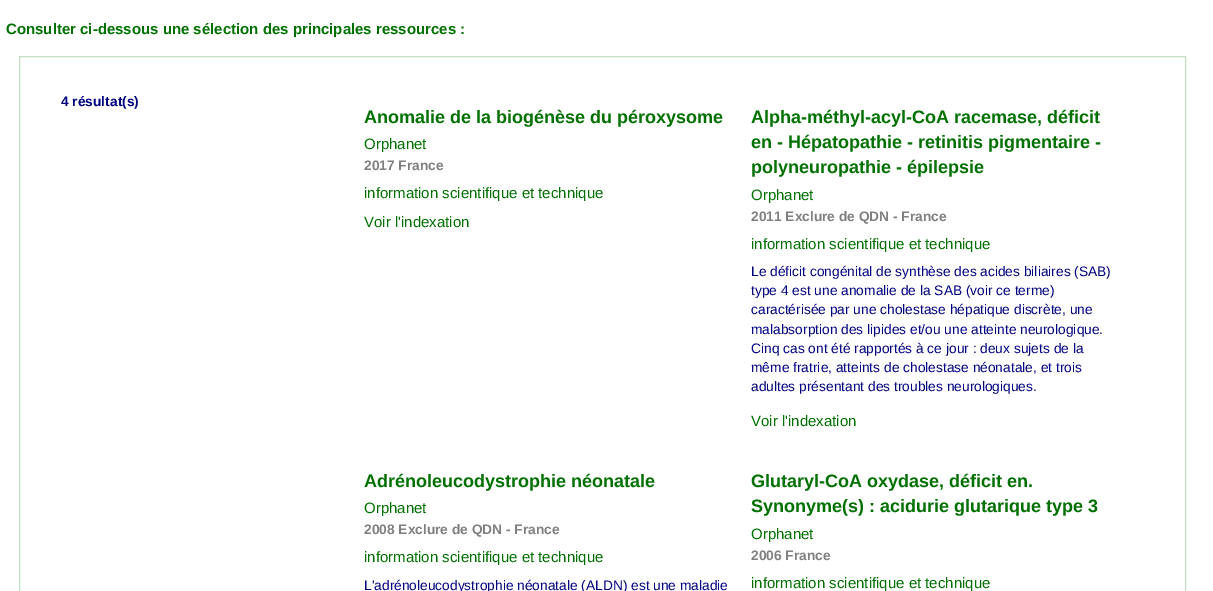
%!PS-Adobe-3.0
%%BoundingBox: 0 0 1213 591
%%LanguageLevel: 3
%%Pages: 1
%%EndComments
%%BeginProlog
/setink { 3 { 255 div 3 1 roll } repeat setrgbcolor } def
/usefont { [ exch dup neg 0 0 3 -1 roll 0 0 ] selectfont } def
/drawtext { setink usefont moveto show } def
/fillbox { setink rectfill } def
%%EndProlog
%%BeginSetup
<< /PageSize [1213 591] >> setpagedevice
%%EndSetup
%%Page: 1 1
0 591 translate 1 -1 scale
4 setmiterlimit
0 0 1213 591 255 255 255 fillbox
(Consulter ci-dessous une sélection des principales ressources :) 6 34 /LiberationSans-Bold 15 0 112 0 drawtext
192 224 192 setink
19.5 56.5 1166 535 rectstroke
(4 résultat\(s\)) 61 106 /LiberationSans-Bold 13.75 0 0 128 drawtext
(Anomalie de la biogénèse du péroxysome) 364 123 /LiberationSans-Bold 18 0 112 0 drawtext
(Orphanet) 364 149 /LiberationSans-Regular 15 0 112 0 drawtext
(2017 France) 364 170 /LiberationSans-Bold 13.75 128 128 128 drawtext
(information scientifique et technique) 364 198 /LiberationSans-Regular 15 0 112 0 drawtext
(Voir l'indexation) 364 227 /LiberationSans-Regular 15 0 112 0 drawtext
(Alpha-méthyl-acyl-CoA racemase, déficit) 751 123 /LiberationSans-Bold 18 0 112 0 drawtext
(en - Hépatopathie - retinitis pigmentaire -) 751 148 /LiberationSans-Bold 18 0 112 0 drawtext
(polyneuropathie - épilepsie) 751 173 /LiberationSans-Bold 18 0 112 0 drawtext
(Orphanet) 751 200 /LiberationSans-Regular 15 0 112 0 drawtext
(2011 Exclure de QDN - France) 751 221 /LiberationSans-Bold 13.75 128 128 128 drawtext
(information scientifique et technique) 751 249 /LiberationSans-Regular 15 0 112 0 drawtext
(Le déficit congénital de synthèse des acides biliaires \(SAB\)) 751 276 /LiberationSans-Regular 13.75 0 0 128 drawtext
(type 4 est une anomalie de la SAB \(voir ce terme\)) 751 295 /LiberationSans-Regular 13.75 0 0 128 drawtext
(caractérisée par une cholestase hépatique discrète, une) 751 314 /LiberationSans-Regular 13.75 0 0 128 drawtext
(malabsorption des lipides et/ou une atteinte neurologique.) 751 334 /LiberationSans-Regular 13.75 0 0 128 drawtext
(Cinq cas ont été rapportés à ce jour : deux sujets de la) 751 353 /LiberationSans-Regular 13.75 0 0 128 drawtext
(même fratrie, atteints de cholestase néonatale, et trois) 751 372 /LiberationSans-Regular 13.75 0 0 128 drawtext
(adultes présentant des troubles neurologiques.) 751 391 /LiberationSans-Regular 13.75 0 0 128 drawtext
(Voir l'indexation) 751 426 /LiberationSans-Regular 15 0 112 0 drawtext
(Adrénoleucodystrophie néonatale) 364 487 /LiberationSans-Bold 18 0 112 0 drawtext
(Orphanet) 364 513 /LiberationSans-Regular 15 0 112 0 drawtext
(2008 Exclure de QDN - France) 364 534 /LiberationSans-Bold 13.75 128 128 128 drawtext
(information scientifique et technique) 364 562 /LiberationSans-Regular 15 0 112 0 drawtext
(L'adrénoleucodystrophie néonatale \(ALDN\) est une maladie) 364 590 /LiberationSans-Regular 13.75 0 0 128 drawtext
(Glutaryl-CoA oxydase, déficit en.) 751 487 /LiberationSans-Bold 18 0 112 0 drawtext
(Synonyme\(s\) : acidurie glutarique type 3) 751 512 /LiberationSans-Bold 18 0 112 0 drawtext
(Orphanet) 751 539 /LiberationSans-Regular 15 0 112 0 drawtext
(2006 France) 751 560 /LiberationSans-Bold 13.75 128 128 128 drawtext
(information scientifique et technique) 751 588 /LiberationSans-Regular 15 0 112 0 drawtext
showpage
%%EOF
